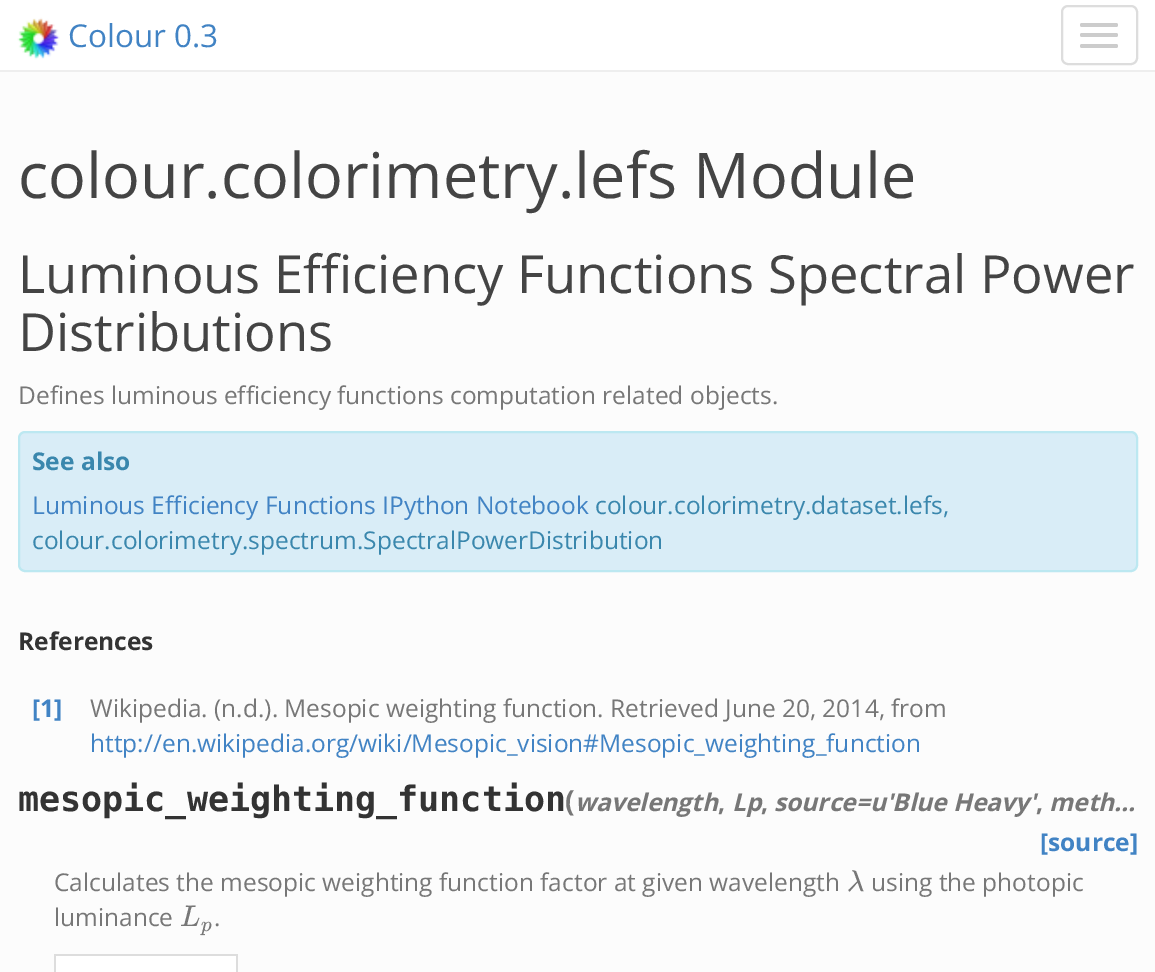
%!PS-Adobe-3.0
%%BoundingBox: 0 0 1155 972
%%LanguageLevel: 3
%%Pages: 1
%%EndComments
%%BeginProlog
/setink { 3 { 255 div 3 1 roll } repeat setrgbcolor } def
/usefont { [ exch dup neg 0 0 3 -1 roll 0 0 ] selectfont } def
/drawtext { setink usefont moveto show } def
/fillbox { setink rectfill } def
/rrect { 5 dict begin { /r /h /w /y /x } { exch def } forall
  x r add y moveto x w add y 2 copy h add r arct x w add y h add x 1 index r arct
  x y h add x y r arct x y 2 copy exch w add exch r arct closepath end } def
/drawimage { 5 dict begin { /h /w /y /x /name } { exch def } forall
  gsave x y translate w h scale
  w h 8 [w 0 0 h 0 0] name (r) file false 3 colorimage grestore end } def
%%EndProlog
%%BeginSetup
<< /PageSize [1155 972] >> setpagedevice
%%EndSetup
%%Page: 1 1
0 972 translate 1 -1 scale
4 setmiterlimit
0 0 1155 972 252 252 252 fillbox
0 0 1155 70 255 255 255 fillbox
0 70 1155 2 238 238 238 fillbox
(assets/img1.rgb) 17 17 43 43 drawimage
(Colour 0.3) 68 47 /OpenSans-Regular 31.5 65 131 196 drawtext
221 221 221 setink
2 setlinewidth
1062 6 75 58 6 rrect stroke
204 204 204 setink
1080 23 38 4 2 rrect fill
1080 33 38 4 2 rrect fill
1080 44 38 4 2 rrect fill
(colour.colorimetry.lefs Module) 18 198 /OpenSans-Regular 63 68 68 68 drawtext
(Luminous Efficiency Functions Spectral Power) 18 293 /OpenSans-Regular 52.5 68 68 68 drawtext
(Distributions) 18 351 /OpenSans-Regular 52.5 68 68 68 drawtext
(Defines luminous efficiency functions computation related objects.) 18 404 /OpenSans-Regular 24.5 119 119 119 drawtext
217 237 247 setink
19 432 1118 139 6 rrect gsave fill grestore
188 232 241 setink
stroke
(See also) 32 470 /OpenSans-Bold 24.5 58 135 173 drawtext
(Luminous Efficiency Functions IPython Notebook) 32 514 /OpenSans-Regular 24.5 65 131 196 drawtext
(colour.colorimetry.dataset.lefs,) 595 514 /OpenSans-Regular 24.5 58 135 173 drawtext
(colour.colorimetry.spectrum.SpectralPowerDistribution) 32 549 /OpenSans-Regular 24.5 58 135 173 drawtext
(References) 18 650 /OpenSans-Bold 24.5 51 51 51 drawtext
([1]) 32 717 /OpenSans-Bold 24.5 65 131 196 drawtext
(Wikipedia. \(n.d.\). Mesopic weighting function. Retrieved June 20, 2014, from) 90 717 /OpenSans-Regular 24.5 119 119 119 drawtext
(http://en.wikipedia.org/wiki/Mesopic_vision#Mesopic_weighting_function) 90 752 /OpenSans-Regular 24.5 65 131 196 drawtext
(mesopic_weighting_function) 18 811 /DejaVuSansMono-Bold 35 51 51 51 drawtext
(\() 565 811 /OpenSans-Bold 29 119 119 119 drawtext
(wavelength) 575 811 /OpenSans-BoldItalic 24.5 119 119 119 drawtext
(,) 718 811 /OpenSans-Bold 24.5 119 119 119 drawtext
(Lp) 732 811 /OpenSans-BoldItalic 24.5 119 119 119 drawtext
(,) 761 811 /OpenSans-Bold 24.5 119 119 119 drawtext
(source=u'Blue Heavy') 774 811 /OpenSans-BoldItalic 24.5 119 119 119 drawtext
(meth...) 1049 811 /OpenSans-BoldItalic 24.5 119 119 119 drawtext
(,) 1036 811 /OpenSans-Bold 24.5 119 119 119 drawtext
([source]) 1040 851 /OpenSans-Bold 24.5 65 131 196 drawtext
(Calculates the mesopic weighting function factor at given wavelength) 54 891 /OpenSans-Regular 24.5 119 119 119 drawtext
(λ) 847 891 /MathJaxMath-Italic 30 119 119 119 drawtext
(using the photopic) 871 891 /OpenSans-Regular 24.5 119 119 119 drawtext
(luminance) 54 926 /OpenSans-Regular 24.5 119 119 119 drawtext
(L) 180 926 /MathJaxMath-Italic 30 119 119 119 drawtext
(p) 201 931 /MathJaxMath-Italic 21 119 119 119 drawtext
(.) 214 926 /OpenSans-Regular 24.5 119 119 119 drawtext
56 956 180 16 255 255 255 fillbox
54 954 184 2 221 221 221 fillbox
236 954 2 18 221 221 221 fillbox
54 954 2 18 221 221 221 fillbox
showpage
%%EOF
